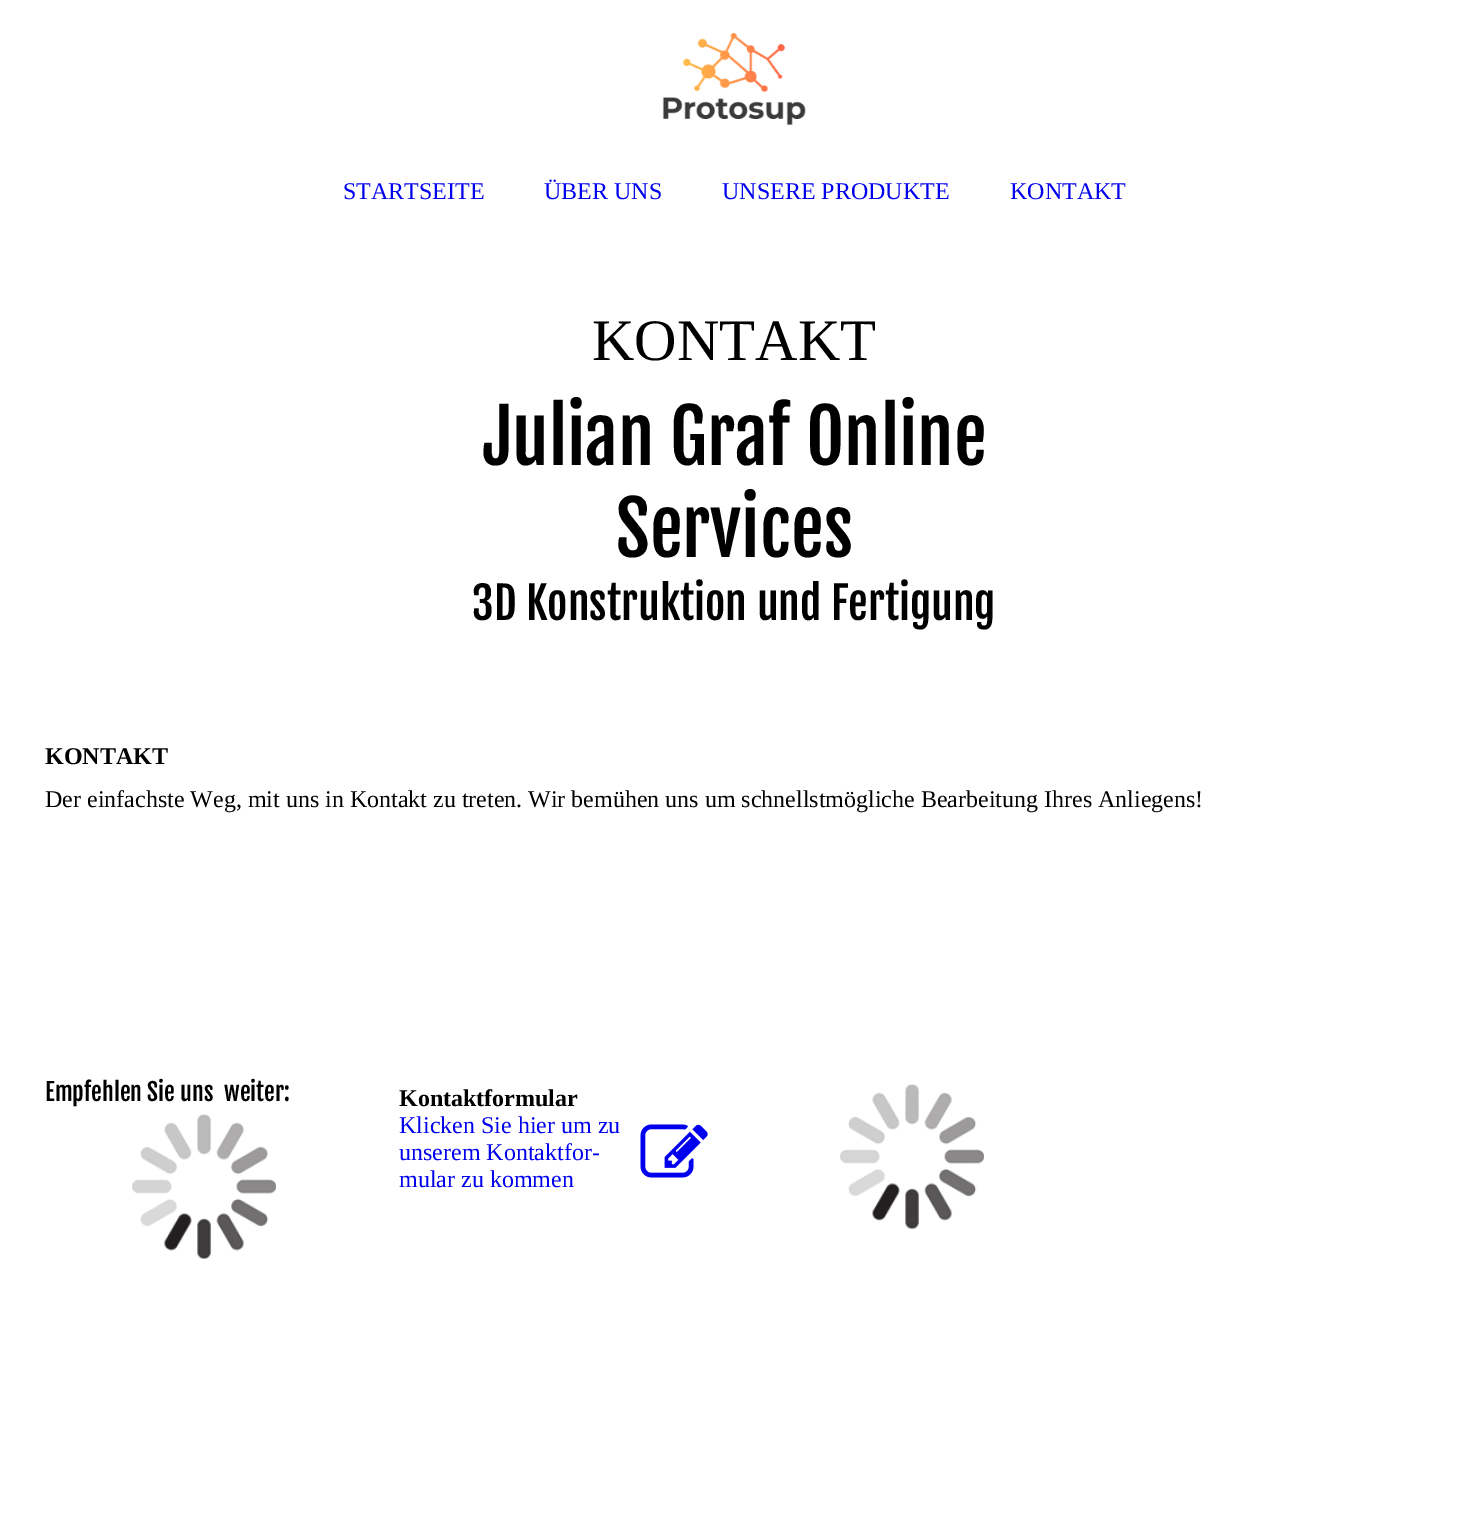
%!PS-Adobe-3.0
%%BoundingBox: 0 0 1468 1533
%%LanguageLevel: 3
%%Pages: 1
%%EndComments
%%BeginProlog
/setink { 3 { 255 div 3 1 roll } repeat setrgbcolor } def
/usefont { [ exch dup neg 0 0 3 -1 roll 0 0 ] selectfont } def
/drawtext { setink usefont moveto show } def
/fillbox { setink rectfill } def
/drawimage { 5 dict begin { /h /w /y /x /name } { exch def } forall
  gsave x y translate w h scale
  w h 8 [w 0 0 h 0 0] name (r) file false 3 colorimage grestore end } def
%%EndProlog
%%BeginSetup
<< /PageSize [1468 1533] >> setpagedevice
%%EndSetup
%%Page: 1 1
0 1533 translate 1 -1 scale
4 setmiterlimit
0 0 1468 1533 255 255 255 fillbox
(assets/img1.rgb) 662 32 144 94 drawimage
(STARTSEITE) 343 199 /LiberationSerif-Regular 24 0 0 238 drawtext
(ÜBER UNS) 544 199 /LiberationSerif-Regular 24 0 0 238 drawtext
(UNSERE PRODUKTE) 722 199 /LiberationSerif-Regular 24 0 0 238 drawtext
(KONTAKT) 1010 199 /LiberationSerif-Regular 24 0 0 238 drawtext
(KONTAKT) 592 360 /LiberationSerif-Regular 58.75 0 0 0 drawtext
(Julian Graf Online) 483 465 /FjallaOne-Regular 73.5 0 0 0 drawtext
(Services) 616 557 /FjallaOne-Regular 73.5 0 0 0 drawtext
(3D Konstruktion und Fertigung) 472 620 /FjallaOne-Regular 44 0 0 0 drawtext
(KONTAKT) 45 764 /LiberationSerif-Bold 24 0 0 0 drawtext
(Der einfachste Weg, mit uns in Kontakt zu treten. Wir bemühen uns um schnellstmögliche Bearbeitung Ihres Anliegens!) 45 807 /LiberationSerif-Regular 24 0 0 0 drawtext
(Empfehlen Sie uns) 45 1101 /FjallaOne-Regular 24 0 0 0 drawtext
(weiter:) 224 1101 /FjallaOne-Regular 24 0 0 0 drawtext
(assets/img2.rgb) 132 1114 144 145 drawimage
(Kontaktformular) 399 1106 /LiberationSerif-Bold 24 0 0 0 drawtext
(Klicken Sie hier um zu) 399 1133 /LiberationSerif-Regular 24 0 0 238 drawtext
(unserem Kontaktfor-) 399 1160 /LiberationSerif-Regular 24 0 0 238 drawtext
(mular zu kommen) 399 1187 /LiberationSerif-Regular 24 0 0 238 drawtext
(assets/img3.rgb) 640 1124 68 54 drawimage
(assets/img4.rgb) 840 1084 144 145 drawimage
showpage
%%EOF
